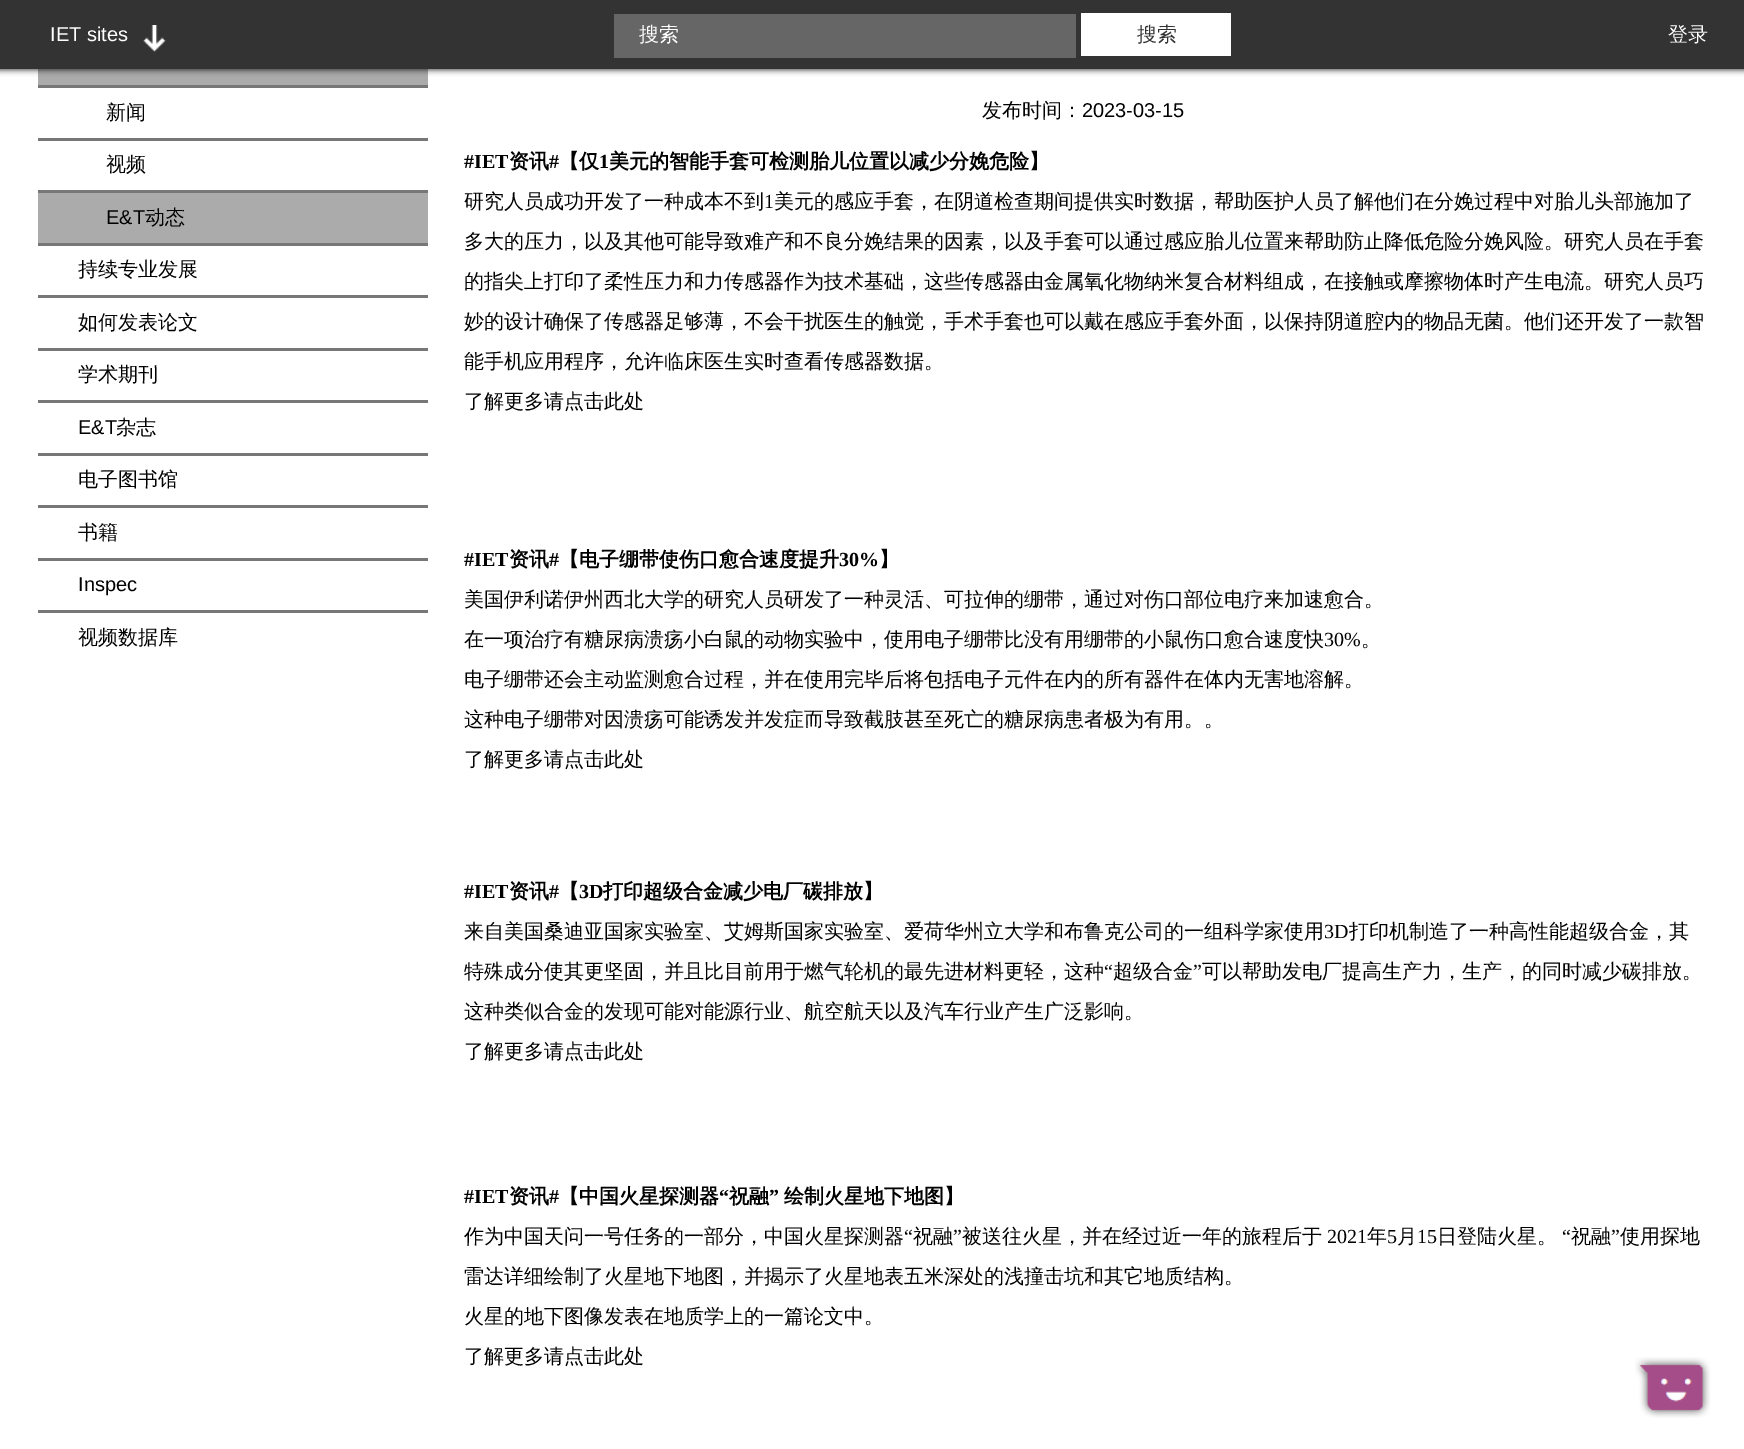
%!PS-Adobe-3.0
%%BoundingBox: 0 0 1744 1449
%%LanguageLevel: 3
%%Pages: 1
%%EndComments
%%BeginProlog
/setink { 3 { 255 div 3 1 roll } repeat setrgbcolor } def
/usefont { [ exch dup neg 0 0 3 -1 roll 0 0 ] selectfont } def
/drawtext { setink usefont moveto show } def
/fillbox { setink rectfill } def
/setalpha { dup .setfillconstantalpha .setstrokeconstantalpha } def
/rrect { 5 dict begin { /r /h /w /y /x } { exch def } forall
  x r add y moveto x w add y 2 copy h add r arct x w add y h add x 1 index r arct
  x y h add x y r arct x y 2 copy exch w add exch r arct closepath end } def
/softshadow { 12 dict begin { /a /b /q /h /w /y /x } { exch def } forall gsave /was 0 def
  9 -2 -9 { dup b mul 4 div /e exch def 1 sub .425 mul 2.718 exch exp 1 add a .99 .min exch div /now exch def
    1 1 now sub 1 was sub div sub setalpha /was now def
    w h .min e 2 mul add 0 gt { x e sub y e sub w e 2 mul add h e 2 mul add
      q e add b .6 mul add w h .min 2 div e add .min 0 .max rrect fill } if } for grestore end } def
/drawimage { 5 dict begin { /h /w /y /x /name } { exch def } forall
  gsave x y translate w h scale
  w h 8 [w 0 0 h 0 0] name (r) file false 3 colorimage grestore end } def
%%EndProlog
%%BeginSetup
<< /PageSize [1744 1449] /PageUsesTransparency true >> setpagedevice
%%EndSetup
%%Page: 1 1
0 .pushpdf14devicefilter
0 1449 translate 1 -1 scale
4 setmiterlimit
0 0 1744 1449 255 255 255 fillbox
38 69 390 16 171 171 171 fillbox
0 0 0 setink
-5 -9 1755 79 0 3 0.75 softshadow
0 0 1744 69 51 51 51 fillbox
(IET sites) 50 41 /LiberationSans-Regular 20 255 255 255 drawtext
(assets/img1.rgb) 143 25 23 27 drawimage
614 14 462 44 102 102 102 fillbox
(搜索) 639 41 /WenQuanYiZenHei-Medium 20 255 255 255 drawtext
1081 13 150 43 255 255 255 fillbox
(搜索) 1137 41 /WenQuanYiZenHei-Medium 20 51 51 51 drawtext
(登录) 1668 41 /WenQuanYiZenHei-Medium 20 255 255 255 drawtext
38 85 390 3 119 119 119 fillbox
(新闻) 106 119 /WenQuanYiZenHei-Medium 20 0 0 0 drawtext
38 138 390 3 119 119 119 fillbox
(视频) 106 171 /WenQuanYiZenHei-Medium 20 0 0 0 drawtext
38 193 390 50 171 171 171 fillbox
38 190 390 3 119 119 119 fillbox
(E&T) 106 224 /LiberationSans-Regular 20 0 0 0 drawtext
(动态) 145 224 /WenQuanYiZenHei-Medium 20 0 0 0 drawtext
38 243 390 3 119 119 119 fillbox
(持续专业发展) 78 276 /WenQuanYiZenHei-Medium 20 0 0 0 drawtext
38 295 390 3 119 119 119 fillbox
(如何发表论文) 78 329 /WenQuanYiZenHei-Medium 20 0 0 0 drawtext
38 348 390 3 119 119 119 fillbox
(学术期刊) 78 381 /WenQuanYiZenHei-Medium 20 0 0 0 drawtext
38 400 390 3 119 119 119 fillbox
(E&T) 78 434 /LiberationSans-Regular 20 0 0 0 drawtext
(杂志) 116 434 /WenQuanYiZenHei-Medium 20 0 0 0 drawtext
38 453 390 3 119 119 119 fillbox
(电子图书馆) 78 486 /WenQuanYiZenHei-Medium 20 0 0 0 drawtext
38 505 390 3 119 119 119 fillbox
(书籍) 78 539 /WenQuanYiZenHei-Medium 20 0 0 0 drawtext
38 558 390 3 119 119 119 fillbox
(Inspec) 78 591 /LiberationSans-Regular 20 0 0 0 drawtext
38 610 390 3 119 119 119 fillbox
(视频数据库) 78 644 /WenQuanYiZenHei-Medium 20 0 0 0 drawtext
(发布时间：) 982 117 /WenQuanYiZenHei-Medium 20 0 0 0 drawtext
(2023-03-15) 1082 117 /LiberationSans-Regular 20 0 0 0 drawtext
(#IET) 464 168 /LiberationSerif-Bold 20 0 0 0 drawtext
(资讯) 509 168 /WenQuanYiZenHei-Bold 20 0 0 0 drawtext
(#) 549 168 /LiberationSerif-Bold 20 0 0 0 drawtext
(【仅) 559 168 /WenQuanYiZenHei-Bold 20 0 0 0 drawtext
(1) 599 168 /LiberationSerif-Bold 20 0 0 0 drawtext
(美元的智能手套可检测胎儿位置以减少分娩危险】) 609 168 /WenQuanYiZenHei-Bold 20 0 0 0 drawtext
(研究人员成功开发了一种成本不到) 464 208 /WenQuanYiZenHei-Medium 20 0 0 0 drawtext
(1) 764 208 /LiberationSerif-Regular 20 0 0 0 drawtext
(美元的感应手套，在阴道检查期间提供实时数据，帮助医护人员了解他们在分娩过程中对胎儿头部施加了) 774 208 /WenQuanYiZenHei-Medium 20 0 0 0 drawtext
(多大的压力，以及其他可能导致难产和不良分娩结果的因素，以及手套可以通过感应胎儿位置来帮助防止降低危险分娩风险。研究人员在手套) 464 248 /WenQuanYiZenHei-Medium 20 0 0 0 drawtext
(的指尖上打印了柔性压力和力传感器作为技术基础，这些传感器由金属氧化物纳米复合材料组成，在接触或摩擦物体时产生电流。研究人员巧) 464 288 /WenQuanYiZenHei-Medium 20 0 0 0 drawtext
(妙的设计确保了传感器足够薄，不会干扰医生的触觉，手术手套也可以戴在感应手套外面，以保持阴道腔内的物品无菌。他们还开发了一款智) 464 328 /WenQuanYiZenHei-Medium 20 0 0 0 drawtext
(能手机应用程序，允许临床医生实时查看传感器数据。) 464 368 /WenQuanYiZenHei-Medium 20 0 0 0 drawtext
(了解更多请点击此处) 464 408 /WenQuanYiZenHei-Medium 20 0 0 0 drawtext
(#IET) 464 566 /LiberationSerif-Bold 20 0 0 0 drawtext
(资讯) 509 566 /WenQuanYiZenHei-Bold 20 0 0 0 drawtext
(#) 549 566 /LiberationSerif-Bold 20 0 0 0 drawtext
(【电子绷带使伤口愈合速度提升) 559 566 /WenQuanYiZenHei-Bold 20 0 0 0 drawtext
(30%) 839 566 /LiberationSerif-Bold 20 0 0 0 drawtext
(】) 879 566 /WenQuanYiZenHei-Bold 20 0 0 0 drawtext
(美国伊利诺伊州西北大学的研究人员研发了一种灵活、可拉伸的绷带，通过对伤口部位电疗来加速愈合。) 464 606 /WenQuanYiZenHei-Medium 20 0 0 0 drawtext
(在一项治疗有糖尿病溃疡小白鼠的动物实验中，使用电子绷带比没有用绷带的小鼠伤口愈合速度快) 464 646 /WenQuanYiZenHei-Medium 20 0 0 0 drawtext
(30%) 1324 646 /LiberationSerif-Regular 20 0 0 0 drawtext
(。) 1361 646 /WenQuanYiZenHei-Medium 20 0 0 0 drawtext
(电子绷带还会主动监测愈合过程，并在使用完毕后将包括电子元件在内的所有器件在体内无害地溶解。) 464 686 /WenQuanYiZenHei-Medium 20 0 0 0 drawtext
(这种电子绷带对因溃疡可能诱发并发症而导致截肢甚至死亡的糖尿病患者极为有用。。) 464 726 /WenQuanYiZenHei-Medium 20 0 0 0 drawtext
(了解更多请点击此处) 464 766 /WenQuanYiZenHei-Medium 20 0 0 0 drawtext
(#IET) 464 898 /LiberationSerif-Bold 20 0 0 0 drawtext
(资讯) 509 898 /WenQuanYiZenHei-Bold 20 0 0 0 drawtext
(#) 549 898 /LiberationSerif-Bold 20 0 0 0 drawtext
(【) 559 898 /WenQuanYiZenHei-Bold 20 0 0 0 drawtext
(3D) 579 898 /LiberationSerif-Bold 20 0 0 0 drawtext
(打印超级合金减少电厂碳排放】) 603 898 /WenQuanYiZenHei-Bold 20 0 0 0 drawtext
(来自美国桑迪亚国家实验室、艾姆斯国家实验室、爱荷华州立大学和布鲁克公司的一组科学家使用) 464 938 /WenQuanYiZenHei-Medium 20 0 0 0 drawtext
(3D) 1324 938 /LiberationSerif-Regular 20 0 0 0 drawtext
(打印机制造了一种高性能超级合金，其) 1349 938 /WenQuanYiZenHei-Medium 20 0 0 0 drawtext
(特殊成分使其更坚固，并且比目前用于燃气轮机的最先进材料更轻，这种) 464 978 /WenQuanYiZenHei-Medium 20 0 0 0 drawtext
(“) 1104 978 /LiberationSerif-Regular 20 0 0 0 drawtext
(超级合金) 1113 978 /WenQuanYiZenHei-Medium 20 0 0 0 drawtext
(”) 1193 978 /LiberationSerif-Regular 20 0 0 0 drawtext
(可以帮助发电厂提高生产力，生产，的同时减少碳排放。) 1202 978 /WenQuanYiZenHei-Medium 20 0 0 0 drawtext
(这种类似合金的发现可能对能源行业、航空航天以及汽车行业产生广泛影响。) 464 1018 /WenQuanYiZenHei-Medium 20 0 0 0 drawtext
(了解更多请点击此处) 464 1058 /WenQuanYiZenHei-Medium 20 0 0 0 drawtext
(#IET) 464 1203 /LiberationSerif-Bold 20 0 0 0 drawtext
(资讯) 509 1203 /WenQuanYiZenHei-Bold 20 0 0 0 drawtext
(#) 549 1203 /LiberationSerif-Bold 20 0 0 0 drawtext
(【中国火星探测器) 559 1203 /WenQuanYiZenHei-Bold 20 0 0 0 drawtext
(“) 719 1203 /LiberationSerif-Bold 20 0 0 0 drawtext
(祝融) 729 1203 /WenQuanYiZenHei-Bold 20 0 0 0 drawtext
(”) 769 1203 /LiberationSerif-Bold 20 0 0 0 drawtext
(绘制火星地下地图】) 784 1203 /WenQuanYiZenHei-Bold 20 0 0 0 drawtext
(作为中国天问一号任务的一部分，中国火星探测器) 464 1243 /WenQuanYiZenHei-Medium 20 0 0 0 drawtext
(“) 904 1243 /LiberationSerif-Regular 20 0 0 0 drawtext
(祝融) 913 1243 /WenQuanYiZenHei-Medium 20 0 0 0 drawtext
(”) 953 1243 /LiberationSerif-Regular 20 0 0 0 drawtext
(被送往火星，并在经过近一年的旅程后于) 962 1243 /WenQuanYiZenHei-Medium 20 0 0 0 drawtext
(2021) 1327 1243 /LiberationSerif-Regular 20 0 0 0 drawtext
(年) 1367 1243 /WenQuanYiZenHei-Medium 20 0 0 0 drawtext
(5) 1387 1243 /LiberationSerif-Regular 20 0 0 0 drawtext
(月) 1397 1243 /WenQuanYiZenHei-Medium 20 0 0 0 drawtext
(15) 1417 1243 /LiberationSerif-Regular 20 0 0 0 drawtext
(日登陆火星。) 1437 1243 /WenQuanYiZenHei-Medium 20 0 0 0 drawtext
(“) 1562 1243 /LiberationSerif-Regular 20 0 0 0 drawtext
(祝融) 1571 1243 /WenQuanYiZenHei-Medium 20 0 0 0 drawtext
(”) 1611 1243 /LiberationSerif-Regular 20 0 0 0 drawtext
(使用探地) 1620 1243 /WenQuanYiZenHei-Medium 20 0 0 0 drawtext
(雷达详细绘制了火星地下地图，并揭示了火星地表五米深处的浅撞击坑和其它地质结构。) 464 1283 /WenQuanYiZenHei-Medium 20 0 0 0 drawtext
(火星的地下图像发表在地质学上的一篇论文中。) 464 1323 /WenQuanYiZenHei-Medium 20 0 0 0 drawtext
(了解更多请点击此处) 464 1363 /WenQuanYiZenHei-Medium 20 0 0 0 drawtext
(assets/img2.rgb) 1635 1357 76 61 drawimage
.poppdf14devicefilter showpage
%%EOF
